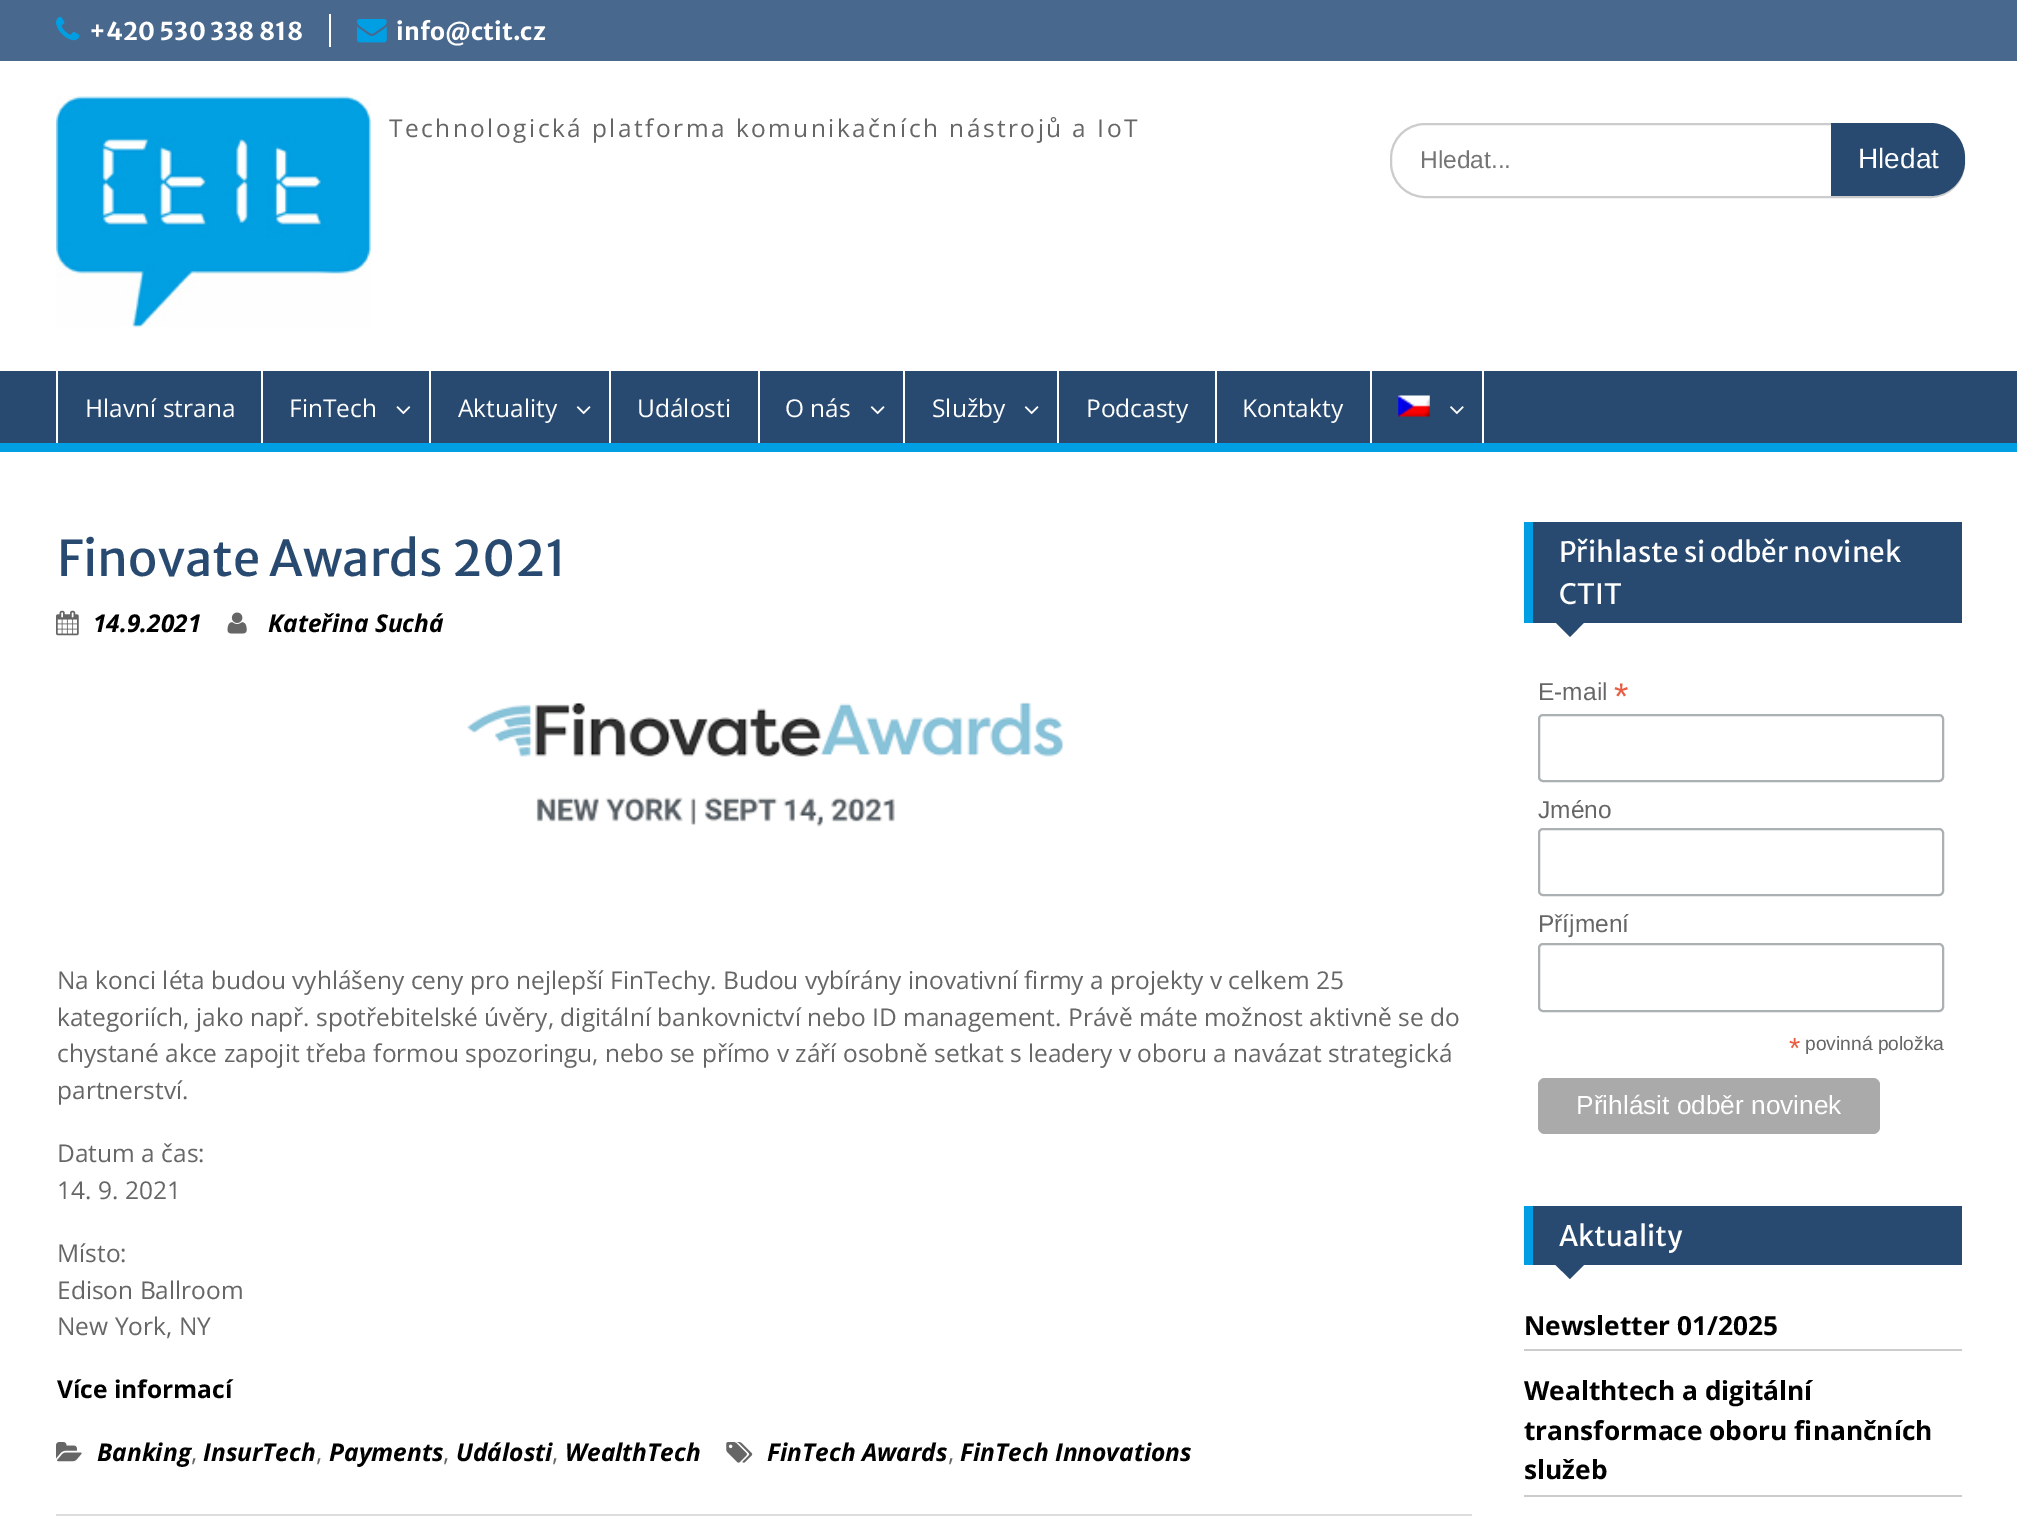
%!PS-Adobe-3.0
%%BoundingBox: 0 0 2017 1536
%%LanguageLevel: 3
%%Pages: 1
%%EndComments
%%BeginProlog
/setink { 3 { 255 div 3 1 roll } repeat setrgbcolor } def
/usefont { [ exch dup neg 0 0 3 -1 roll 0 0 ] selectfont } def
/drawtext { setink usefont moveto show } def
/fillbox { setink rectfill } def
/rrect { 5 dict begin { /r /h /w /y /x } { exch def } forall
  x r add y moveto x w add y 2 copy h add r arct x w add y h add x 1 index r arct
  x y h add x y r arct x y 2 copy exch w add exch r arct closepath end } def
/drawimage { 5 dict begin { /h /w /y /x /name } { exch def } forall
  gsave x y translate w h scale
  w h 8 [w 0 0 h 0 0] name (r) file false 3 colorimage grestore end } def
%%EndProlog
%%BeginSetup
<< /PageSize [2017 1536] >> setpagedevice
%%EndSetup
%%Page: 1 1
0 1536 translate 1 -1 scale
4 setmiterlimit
0 0 2017 1536 255 255 255 fillbox
0 0 2017 61 73 104 142 fillbox
(assets/img1.rgb) 56 16 24 25 drawimage
(+420 530 338 818) 89 40 /MerriweatherSans-Bold 24.5 255 255 255 drawtext
329 14 2 33 255 255 255 fillbox
(assets/img2.rgb) 357 19 30 24 drawimage
(info@ctit.cz) 396 40 /MerriweatherSans-Bold 24.5 255 255 255 drawtext
(assets/img3.rgb) 56 96 315 232 drawimage
/OpenSans-Regular 24.5 usefont
102 102 102 setink
389 137 moveto 2.45 0 (Technologická platforma komunikačních nástrojů a IoT) ashow
204 204 204 setink
2 setlinewidth
1391 124 573 73 34 rrect stroke
(Hledat...) 1420 168 /LiberationSans-Regular 24.5 117 117 117 drawtext
41 74 112 setink
1831 123 moveto 1930 123 lineto 1949.5 123 1965 138.5 1965 158 curveto 1965 161 lineto 1965 180.5 1949.5 196 1930 196 curveto 1831 196 lineto closepath fill
(Hledat) 1858 168 /LiberationSans-Regular 28 255 255 255 drawtext
0 371 2017 72 41 74 112 fillbox
0 443 2017 9 0 159 227 fillbox
261 371 2 72 255 255 255 fillbox
56 371 2 72 255 255 255 fillbox
(Hlavní strana) 85 417 /OpenSans-Regular 24.5 255 255 255 drawtext
429 371 2 72 255 255 255 fillbox
(FinTech) 289 417 /OpenSans-Regular 24.5 255 255 255 drawtext
(assets/img4.rgb) 396 406 15 9 drawimage
609 371 2 72 255 255 255 fillbox
(Aktuality) 458 417 /OpenSans-Regular 24.5 255 255 255 drawtext
(assets/img5.rgb) 576 406 15 9 drawimage
758 371 2 72 255 255 255 fillbox
(Události) 637 417 /OpenSans-Regular 24.5 255 255 255 drawtext
903 371 2 72 255 255 255 fillbox
(O nás) 785 417 /OpenSans-Regular 24.5 255 255 255 drawtext
(assets/img5.rgb) 870 406 15 9 drawimage
1057 371 2 72 255 255 255 fillbox
(Služby) 932 417 /OpenSans-Regular 24.5 255 255 255 drawtext
(assets/img5.rgb) 1024 406 15 9 drawimage
1215 371 2 72 255 255 255 fillbox
(Podcasty) 1086 417 /OpenSans-Regular 24.5 255 255 255 drawtext
1370 371 2 72 255 255 255 fillbox
(Kontakty) 1242 417 /OpenSans-Regular 24.5 255 255 255 drawtext
1482 371 2 72 255 255 255 fillbox
(assets/img6.rgb) 1398 395 32 22 drawimage
(assets/img7.rgb) 1450 406 14 9 drawimage
56 1514 1416 2 221 221 221 fillbox
(Finovate Awards 2021) 57 576 /MerriweatherSans-Regular 49 41 74 112 drawtext
(assets/img8.rgb) 56 610 23 26 drawimage
(14.9.2021) 93 632 /OpenSans-BoldItalic 24.5 0 0 0 drawtext
(assets/img9.rgb) 227 612 20 22 drawimage
(Kateřina Suchá) 268 632 /OpenSans-BoldItalic 24.5 0 0 0 drawtext
(assets/img10.rgb) 467 702 597 125 drawimage
(Na konci léta budou vyhlášeny ceny pro nejlepší FinTechy. Budou vybírány inovativní firmy a projekty v celkem 25) 57 989 /OpenSans-Regular 24.5 102 102 102 drawtext
(kategoriích, jako např. spotřebitelské úvěry, digitální bankovnictví nebo ID management. Právě máte možnost aktivně se do) 57 1026 /OpenSans-Regular 24.5 102 102 102 drawtext
(chystané akce zapojit třeba formou spozoringu, nebo se přímo v září osobně setkat s leadery v oboru a navázat strategická) 57 1062 /OpenSans-Regular 24.5 102 102 102 drawtext
(partnerství.) 57 1099 /OpenSans-Regular 24.5 102 102 102 drawtext
(Datum a čas:) 57 1162 /OpenSans-Regular 24.5 102 102 102 drawtext
(14. 9. 2021) 57 1199 /OpenSans-Regular 24.5 102 102 102 drawtext
(Místo:) 57 1262 /OpenSans-Regular 24.5 102 102 102 drawtext
(Edison Ballroom) 57 1299 /OpenSans-Regular 24.5 102 102 102 drawtext
(New York, NY) 57 1335 /OpenSans-Regular 24.5 102 102 102 drawtext
(Více informací) 57 1398 /OpenSans-Bold 24.5 0 0 0 drawtext
(assets/img11.rgb) 56 1442 26 20 drawimage
(Banking) 97 1461 /OpenSans-BoldItalic 24.5 0 0 0 drawtext
(,) 191 1461 /OpenSans-Regular 24.5 102 102 102 drawtext
(InsurTech) 203 1461 /OpenSans-BoldItalic 24.5 0 0 0 drawtext
(,) 316 1461 /OpenSans-Regular 24.5 102 102 102 drawtext
(Payments) 329 1461 /OpenSans-BoldItalic 24.5 0 0 0 drawtext
(,) 443 1461 /OpenSans-Regular 24.5 102 102 102 drawtext
(Události) 456 1461 /OpenSans-BoldItalic 24.5 0 0 0 drawtext
(,) 552 1461 /OpenSans-Regular 24.5 102 102 102 drawtext
(WealthTech) 565 1461 /OpenSans-BoldItalic 24.5 0 0 0 drawtext
(assets/img12.rgb) 726 1442 27 21 drawimage
(FinTech Awards) 767 1461 /OpenSans-BoldItalic 24.5 0 0 0 drawtext
(,) 948 1461 /OpenSans-Regular 24.5 102 102 102 drawtext
(FinTech Innovations) 960 1461 /OpenSans-BoldItalic 24.5 0 0 0 drawtext
1533 522 429 101 41 74 112 fillbox
1524 522 9 101 0 159 227 fillbox
(Přihlaste si odběr novinek) 1559 562 /MerriweatherSans-Regular 28 255 255 255 drawtext
(CTIT) 1559 604 /MerriweatherSans-Regular 28 255 255 255 drawtext
41 74 112 setink
1554 621 moveto 1585.5 621 lineto 1570 637 lineto closepath fill
(E-mail) 1538 700 /LiberationSans-Regular 24.5 102 102 102 drawtext
(*) 1614 709 /LiberationSans-Regular 37 232 92 65 drawtext
171 176 178 setink
1539 715 404 66 4 rrect stroke
(Jméno) 1538 818 /LiberationSans-Regular 24.5 102 102 102 drawtext
171 176 178 setink
1539 829 404 66 4 rrect stroke
(Příjmení) 1538 932 /LiberationSans-Regular 24.5 102 102 102 drawtext
171 176 178 setink
1539 944 404 67 4 rrect stroke
(*) 1789 1058 /LiberationSans-Regular 29 232 92 65 drawtext
(povinná položka) 1805 1050 /LiberationSans-Regular 19.25 102 102 102 drawtext
170 170 170 setink
1538 1078 342 56 7 rrect fill
(Přihlásit odběr novinek) 1576 1114 /LiberationSans-Regular 26.25 255 255 255 drawtext
1533 1206 429 59 41 74 112 fillbox
1524 1206 9 59 0 159 227 fillbox
(Aktuality) 1559 1246 /MerriweatherSans-Regular 28 255 255 255 drawtext
41 74 112 setink
1554 1263.5 moveto 1585.5 1263.5 lineto 1570 1279 lineto closepath fill
1524 1349 438 2 204 204 204 fillbox
(Newsletter 01/2025) 1524 1335 /OpenSans-Bold 26.25 0 0 0 drawtext
1524 1495 438 2 204 204 204 fillbox
(Wealthtech a digitální) 1524 1400 /OpenSans-Bold 26.25 0 0 0 drawtext
(transformace oboru finančních) 1524 1440 /OpenSans-Bold 26.25 0 0 0 drawtext
(služeb) 1524 1479 /OpenSans-Bold 26.25 0 0 0 drawtext
showpage
%%EOF
